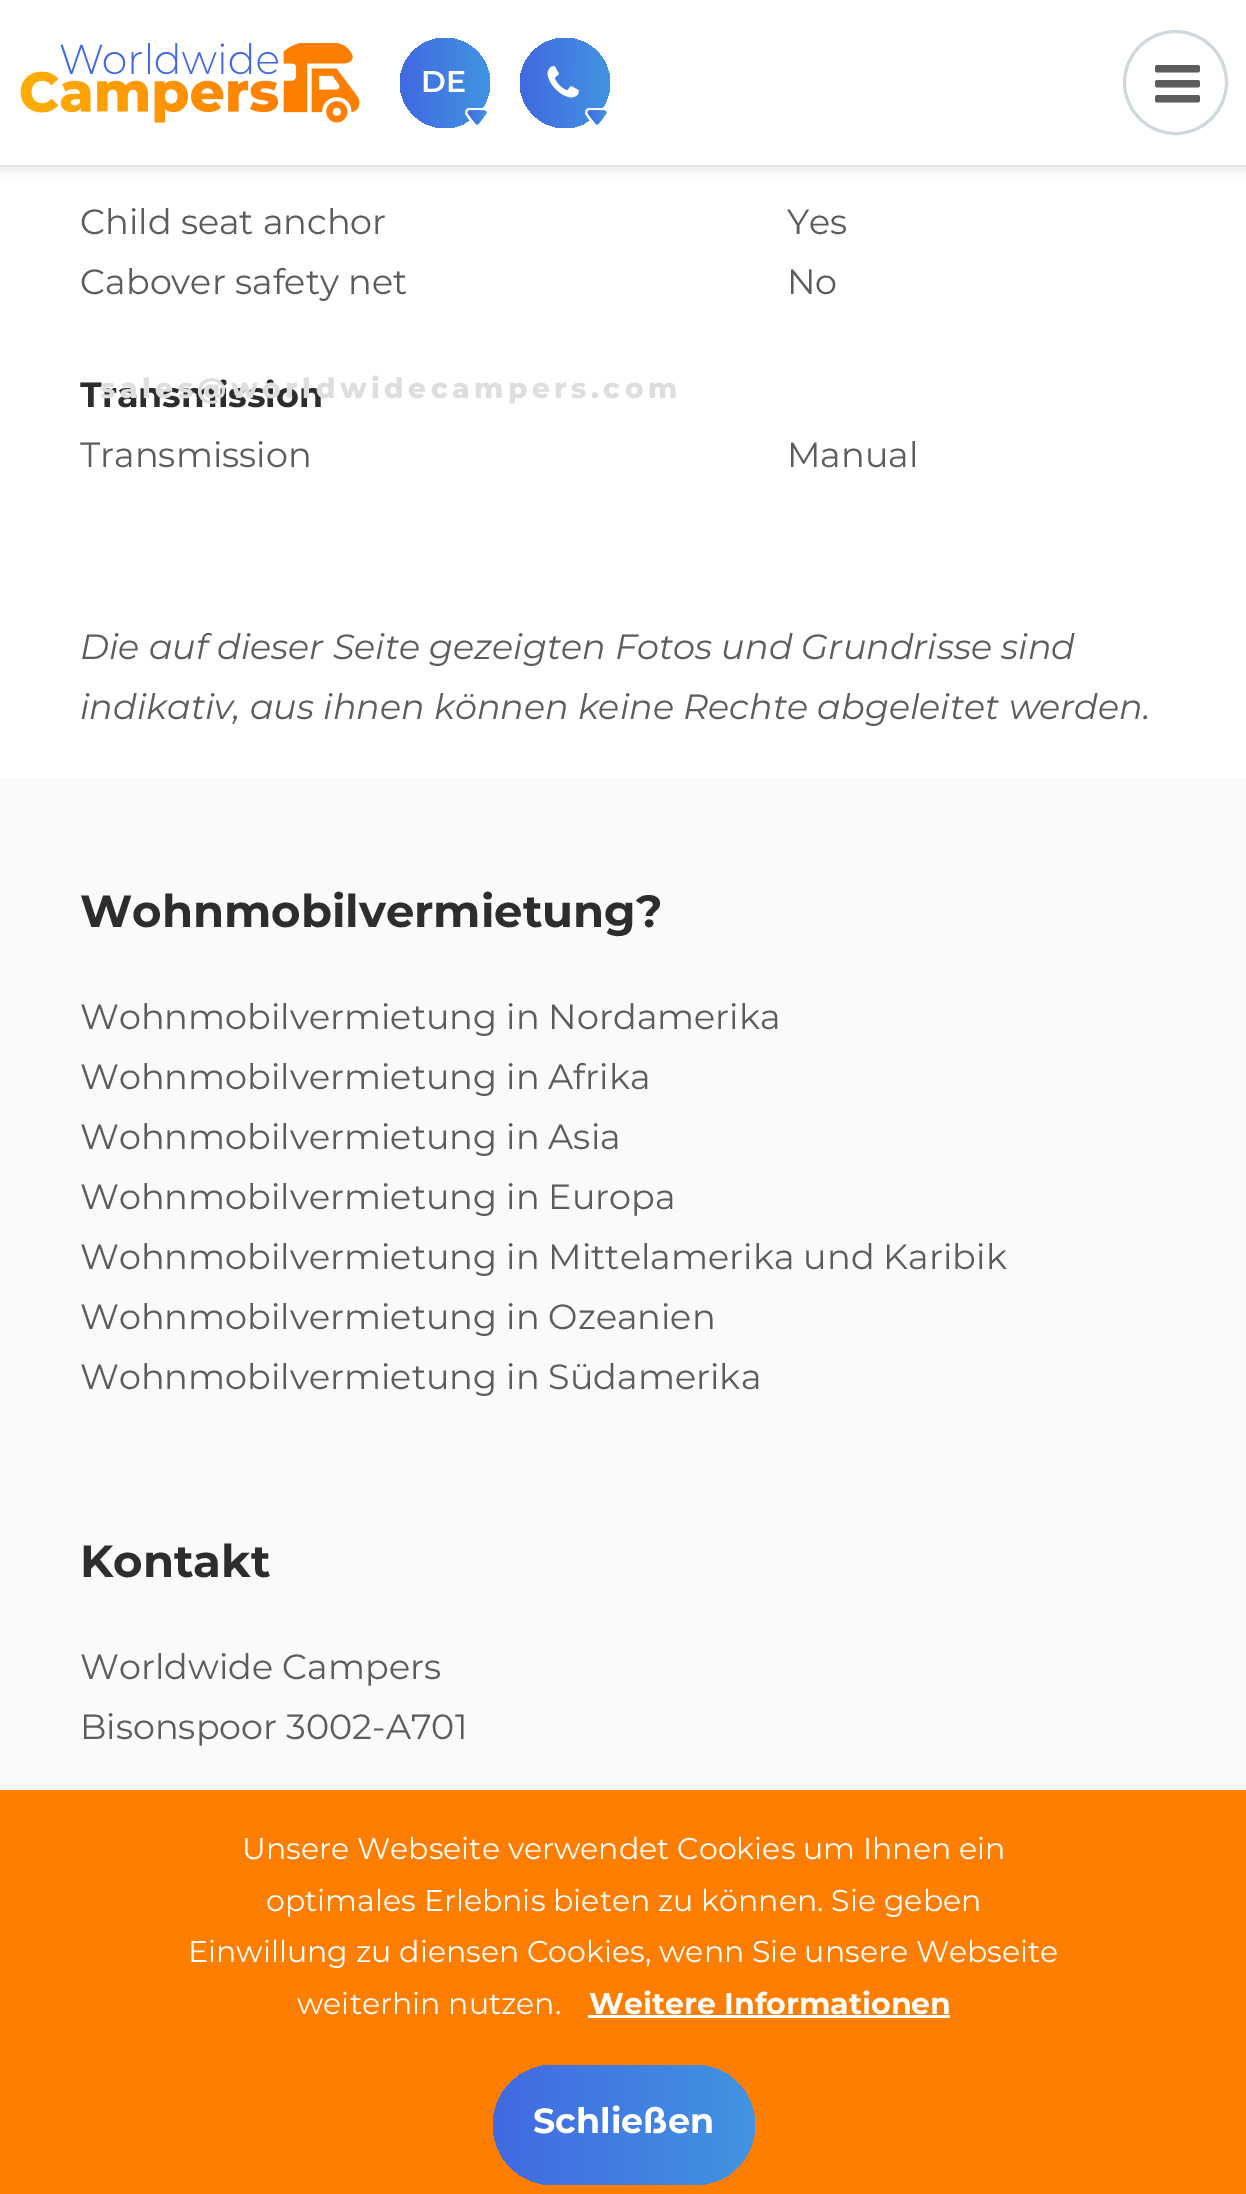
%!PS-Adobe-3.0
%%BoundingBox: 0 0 1246 2194
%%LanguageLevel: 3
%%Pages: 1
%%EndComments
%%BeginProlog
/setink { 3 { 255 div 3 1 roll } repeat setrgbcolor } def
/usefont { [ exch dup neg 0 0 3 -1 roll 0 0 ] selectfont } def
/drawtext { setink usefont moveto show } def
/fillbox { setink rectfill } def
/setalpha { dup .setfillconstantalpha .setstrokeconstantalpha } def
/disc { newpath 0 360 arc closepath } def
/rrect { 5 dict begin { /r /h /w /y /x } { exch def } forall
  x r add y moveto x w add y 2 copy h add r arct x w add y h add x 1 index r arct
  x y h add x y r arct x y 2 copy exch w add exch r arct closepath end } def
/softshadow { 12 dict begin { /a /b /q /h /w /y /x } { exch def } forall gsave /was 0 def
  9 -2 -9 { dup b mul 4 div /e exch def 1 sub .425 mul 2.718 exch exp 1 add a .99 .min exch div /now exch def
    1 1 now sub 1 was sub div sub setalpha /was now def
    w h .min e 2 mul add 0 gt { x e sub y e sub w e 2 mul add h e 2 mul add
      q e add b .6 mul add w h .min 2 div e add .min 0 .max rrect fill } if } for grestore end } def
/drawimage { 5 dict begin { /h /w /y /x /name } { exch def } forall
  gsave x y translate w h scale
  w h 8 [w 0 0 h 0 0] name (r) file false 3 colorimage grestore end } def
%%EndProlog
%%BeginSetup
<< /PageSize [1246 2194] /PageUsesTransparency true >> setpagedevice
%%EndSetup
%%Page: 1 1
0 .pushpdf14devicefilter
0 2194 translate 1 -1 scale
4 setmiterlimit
0 0 1246 2194 255 255 255 fillbox
0 0 0 setink
0 0 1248 165 0 7.5 0.2 softshadow
0 0 1246 165 255 255 255 fillbox
(assets/img1.rgb) 20 43 340 80 drawimage
207 216 220 setink
3 setlinewidth
1175.5 82.5 51 disc stroke
(assets/img2.rgb) 1155 65 45 38 drawimage
gsave 445 83 45 disc clip newpath
<< /ShadingType 2 /ColorSpace /DeviceRGB /Coords [400 83 490 83] /Extend [true true] /Function << /FunctionType 2 /Domain [0 1] /C0 [0.255 0.412 0.882] /C1 [0.255 0.58 0.882] /N 1 >> >> shfill grestore
(DE) 421 92 /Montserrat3-Thin 30 255 255 255 drawtext
(assets/img3.rgb) 465 108 22 17 drawimage
gsave 565 83 45 disc clip newpath
<< /ShadingType 2 /ColorSpace /DeviceRGB /Coords [520 83 610 83] /Extend [true true] /Function << /FunctionType 2 /Domain [0 1] /C0 [0.255 0.412 0.882] /C1 [0.255 0.58 0.882] /N 1 >> >> shfill grestore
(assets/img4.rgb) 547 66 32 32 drawimage
(assets/img3.rgb) 585 108 22 17 drawimage
(Transmission) 80 407 /Montserrat-Thin 35 45 45 45 drawtext
/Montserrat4-Thin 28 usefont
222 222 222 setink
100 398 moveto 4.5 0 (sales@worldwidecampers.com) ashow
(Child seat anchor) 80 234 /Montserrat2-Thin 35 92 92 92 drawtext
(Yes) 787 234 /Montserrat2-Thin 35 92 92 92 drawtext
(Cabover safety net) 80 294 /Montserrat2-Thin 35 92 92 92 drawtext
(No) 787 294 /Montserrat2-Thin 35 92 92 92 drawtext
(Transmission) 80 467 /Montserrat2-Thin 35 92 92 92 drawtext
(Manual) 787 467 /Montserrat2-Thin 35 92 92 92 drawtext
(Die auf dieser Seite gezeigten Fotos und Grundrisse sind) 80 659 /Montserrat-ThinItalic 35 92 92 92 drawtext
(indikativ, aus ihnen können keine Rechte abgeleitet werden.) 80 719 /Montserrat-ThinItalic 35 92 92 92 drawtext
0 778 1246 1012 250 250 250 fillbox
(Wohnmobilvermietung?) 80 927 /Montserrat-Thin 45 45 45 45 drawtext
(Wohnmobilvermietung in Nordamerika) 80 1029 /Montserrat2-Thin 35 92 92 92 drawtext
(Wohnmobilvermietung in Afrika) 80 1089 /Montserrat2-Thin 35 92 92 92 drawtext
(Wohnmobilvermietung in Asia) 80 1149 /Montserrat2-Thin 35 92 92 92 drawtext
(Wohnmobilvermietung in Europa) 80 1209 /Montserrat2-Thin 35 92 92 92 drawtext
(Wohnmobilvermietung in Mittelamerika und Karibik) 80 1269 /Montserrat2-Thin 35 92 92 92 drawtext
(Wohnmobilvermietung in Ozeanien) 80 1329 /Montserrat2-Thin 35 92 92 92 drawtext
(Wohnmobilvermietung in Südamerika) 80 1389 /Montserrat2-Thin 35 92 92 92 drawtext
(Kontakt) 80 1577 /Montserrat-Thin 45 45 45 45 drawtext
(Worldwide Campers) 80 1679 /Montserrat2-Thin 35 92 92 92 drawtext
(Bisonspoor 3002-A701) 80 1739 /Montserrat2-Thin 35 92 92 92 drawtext
0 1790 1246 404 255 126 0 fillbox
(Unsere Webseite verwendet Cookies um Ihnen ein) 242 1859 /Montserrat2-Thin 30 255 255 255 drawtext
(optimales Erlebnis bieten zu können. Sie geben) 266 1911 /Montserrat2-Thin 30 255 255 255 drawtext
(Einwillung zu diensen Cookies, wenn Sie unsere Webseite) 188 1962 /Montserrat2-Thin 30 255 255 255 drawtext
(weiterhin nutzen.) 297 2014 /Montserrat2-Thin 30 255 255 255 drawtext
(Weitere Informationen) 589 2014 /Montserrat-Thin 30 255 255 255 drawtext
588 2015 362 3 255 255 255 fillbox
gsave 493 2065 262 120 60 rrect clip newpath
<< /ShadingType 2 /ColorSpace /DeviceRGB /Coords [493 2125 755 2125] /Extend [true true] /Function << /FunctionType 2 /Domain [0 1] /C0 [0.255 0.412 0.882] /C1 [0.255 0.58 0.882] /N 1 >> >> shfill grestore
(Schließen) 533 2133 /Montserrat-Thin 35 255 255 255 drawtext
.poppdf14devicefilter showpage
%%EOF
